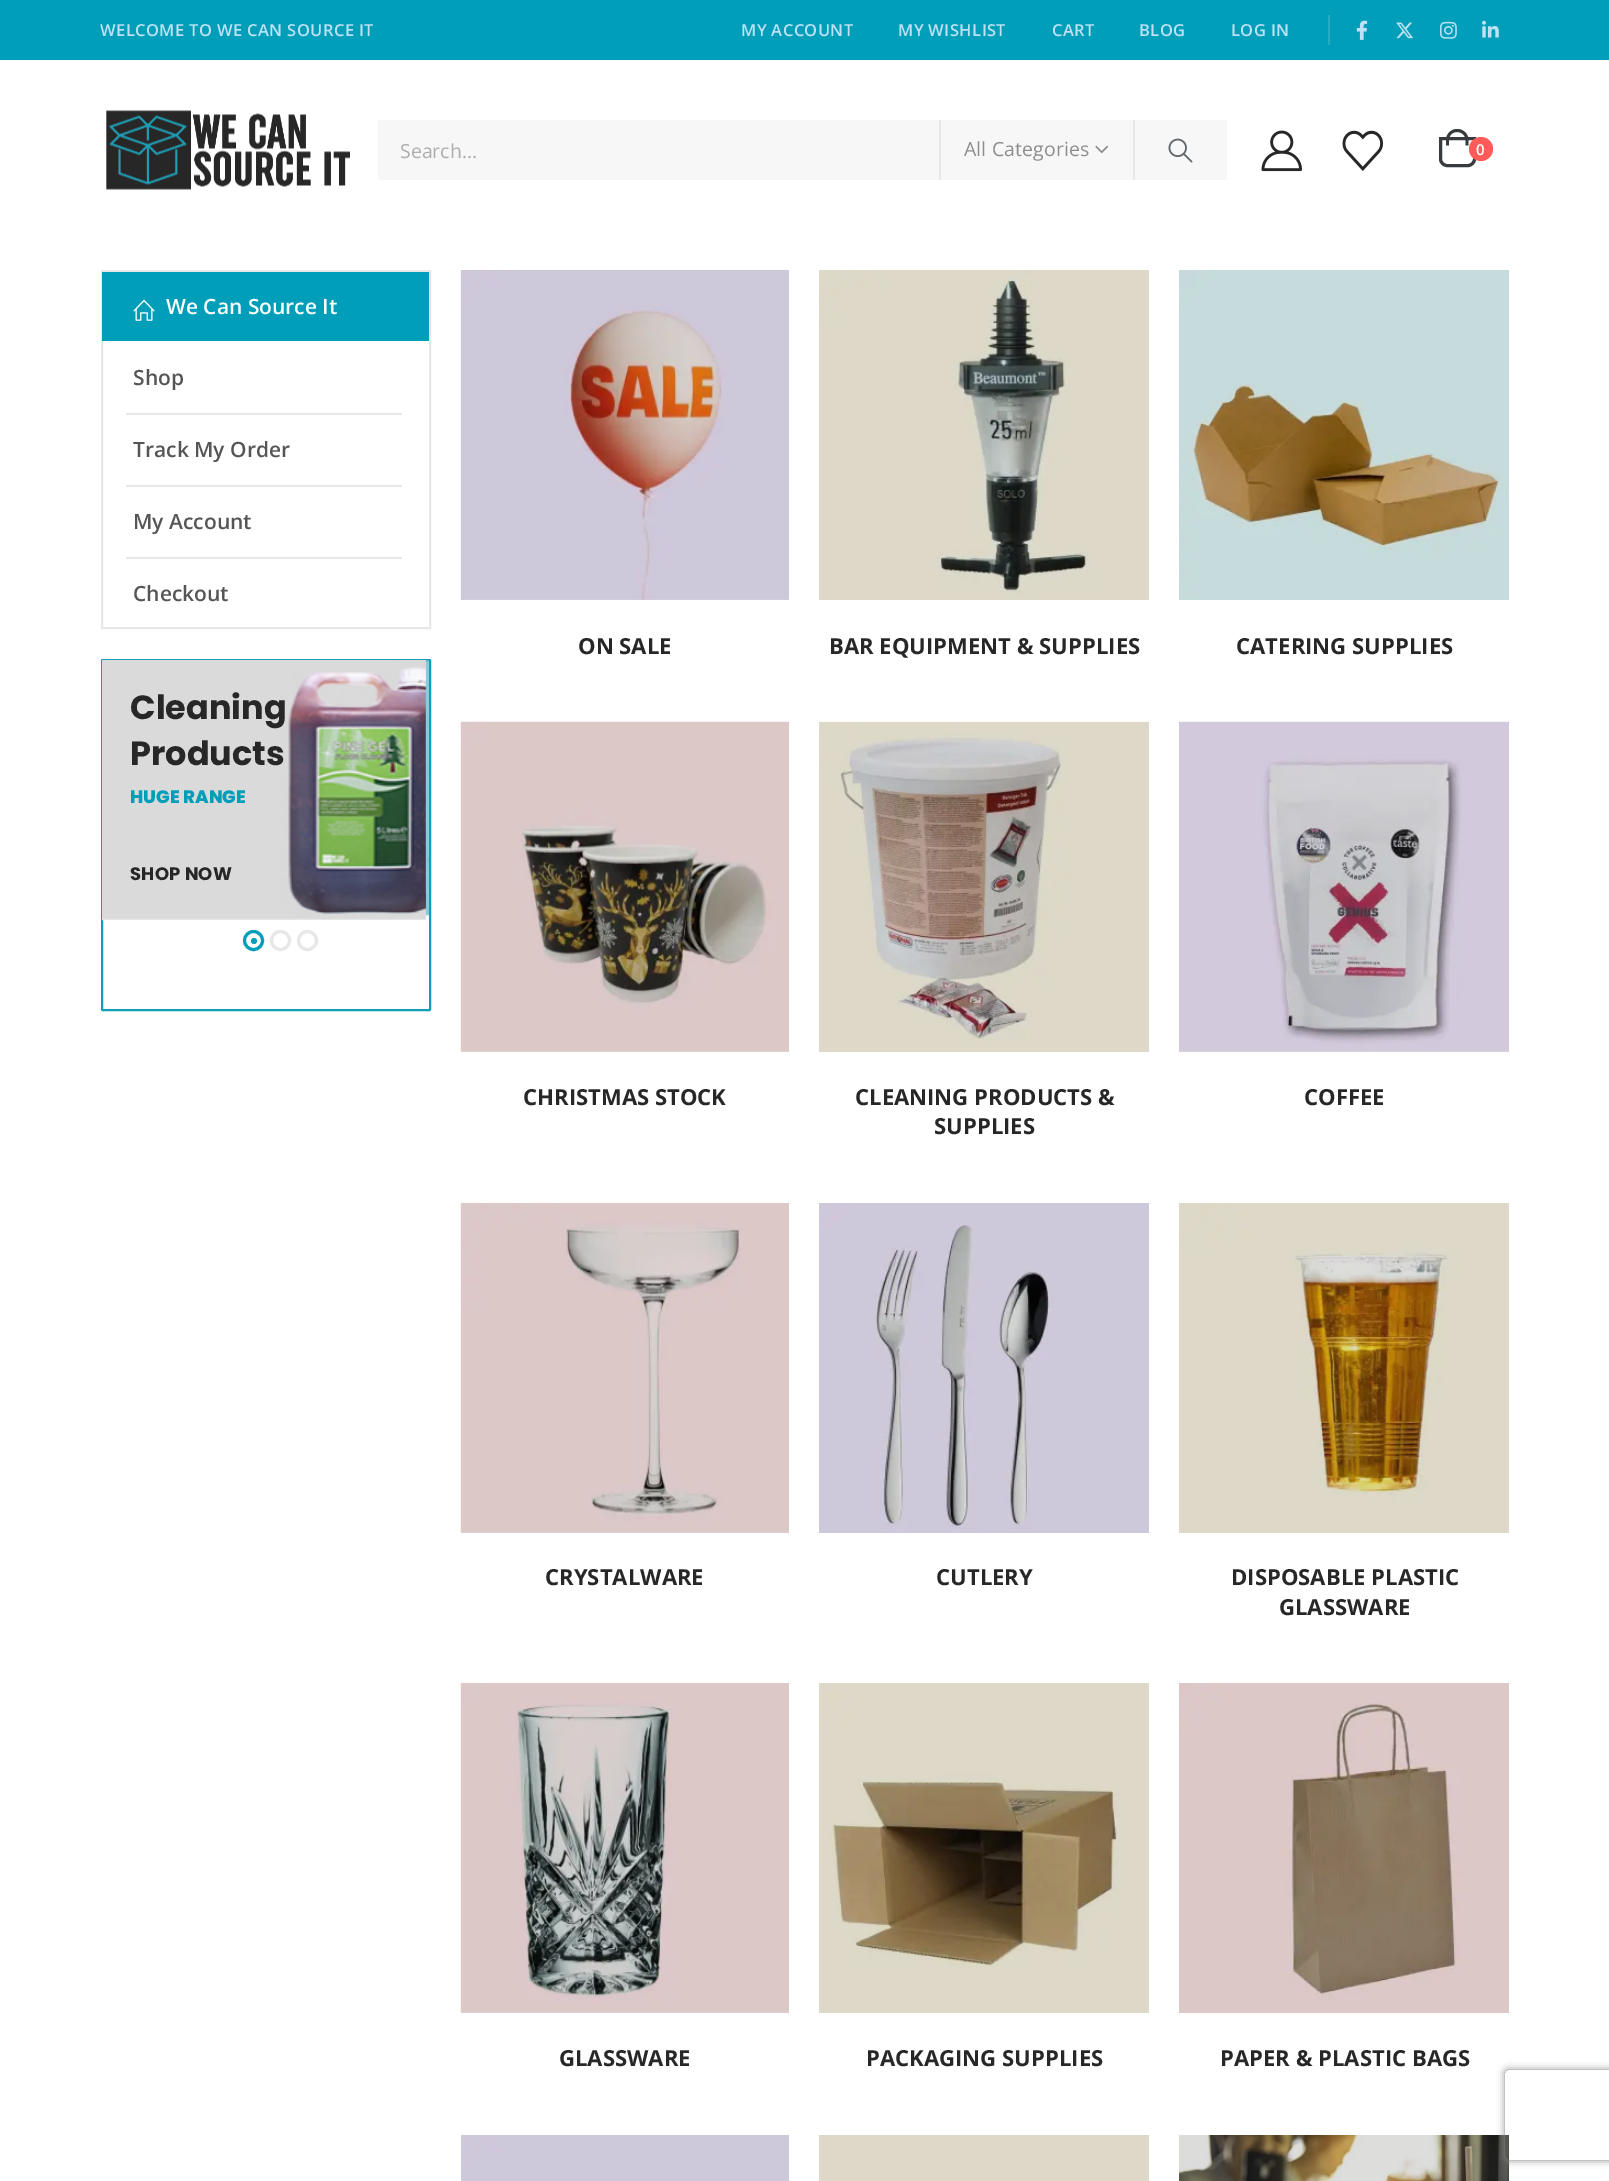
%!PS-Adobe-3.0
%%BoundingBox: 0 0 1609 2181
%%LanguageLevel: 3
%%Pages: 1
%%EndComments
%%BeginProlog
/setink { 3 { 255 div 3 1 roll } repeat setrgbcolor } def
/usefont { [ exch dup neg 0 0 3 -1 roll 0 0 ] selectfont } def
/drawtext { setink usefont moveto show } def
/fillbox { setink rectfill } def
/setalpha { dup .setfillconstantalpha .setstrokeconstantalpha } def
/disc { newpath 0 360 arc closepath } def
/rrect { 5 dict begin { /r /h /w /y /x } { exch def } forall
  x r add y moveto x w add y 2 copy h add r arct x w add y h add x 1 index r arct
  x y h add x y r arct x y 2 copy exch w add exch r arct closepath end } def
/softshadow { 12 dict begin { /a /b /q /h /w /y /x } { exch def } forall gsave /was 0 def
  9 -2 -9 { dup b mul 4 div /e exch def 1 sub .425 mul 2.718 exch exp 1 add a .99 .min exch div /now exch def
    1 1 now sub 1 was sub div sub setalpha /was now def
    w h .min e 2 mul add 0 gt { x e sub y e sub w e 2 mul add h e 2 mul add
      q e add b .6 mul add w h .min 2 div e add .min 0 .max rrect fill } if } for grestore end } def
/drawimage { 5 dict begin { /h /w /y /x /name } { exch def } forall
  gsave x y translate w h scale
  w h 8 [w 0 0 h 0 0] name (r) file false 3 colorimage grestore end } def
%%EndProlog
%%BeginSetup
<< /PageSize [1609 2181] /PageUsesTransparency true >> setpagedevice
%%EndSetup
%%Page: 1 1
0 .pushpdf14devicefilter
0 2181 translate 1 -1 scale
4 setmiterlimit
0 0 1609 2181 255 255 255 fillbox
1179 1051 330 1 221 221 220 fillbox
819 1051 330 1 221 221 220 fillbox
461 1051 328 1 221 221 220 fillbox
0 0 1609 60 0 158 184 fillbox
/OpenSans-SemiBold 16.5 usefont
189 225 245 setink
100 36 moveto 0.4 0 (WELCOME TO WE CAN SOURCE IT) ashow
741 36 moveto 0.4 0 (MY ACCOUNT) ashow
898 36 moveto 0.4 0 (MY WISHLIST) ashow
1052 36 moveto 0.4 0 (CART) ashow
1139 36 moveto 0.4 0 (BLOG) ashow
1231 36 moveto 0.4 0 (LOG IN) ashow
1328 15 2 30 37 172 194 fillbox
(assets/img1.rgb) 1356 20 12 20 drawimage
(assets/img2.rgb) 1396 22 18 17 drawimage
(assets/img3.rgb) 1440 21 17 18 drawimage
(assets/img4.rgb) 1482 20 17 18 drawimage
(assets/img5.rgb) 106 110 244 80 drawimage
378 120 849 60 247 247 247 fillbox
939 120 2 60 231 231 231 fillbox
(Search…) 400 158 /OpenSans-Regular 19.5 173 173 173 drawtext
1133 120 2 60 231 231 231 fillbox
141 141 141 setink
964 156 moveto 0.1 0 (All Categories) ashow
(assets/img6.rgb) 1095 145 14 9 drawimage
(assets/img7.rgb) 1168 138 25 25 drawimage
(assets/img8.rgb) 1261 130 41 42 drawimage
(assets/img9.rgb) 1342 130 41 41 drawimage
56 59 62 setink
3 setlinewidth
1440.5 138.5 moveto 1474.5 138.5 lineto 1474.5 159 lineto 1474.5 162.5 1471.5 165.5 1468 165.5 curveto 1447 165.5 lineto 1443.5 165.5 1440.5 162.5 1440.5 159 curveto closepath stroke
1457 129 moveto 1463.5 129 1468.5 134 1468.5 140 curveto 1468.5 145.5 lineto 1446 145.5 lineto 1446 140 lineto 1446 134 1451 129 1457 129 curveto closepath 1457 132 moveto 1462 132 1465.5 135.5 1465.5 140 curveto 1465.5 145.5 lineto 1449 145.5 lineto 1449 140 lineto 1449 135.5 1452.5 132 1457 132 curveto closepath eofill
255 91 91 setink
1481 149 12 disc fill
(0) 1476 155 /OpenSans-SemiBold 15 255 255 255 drawtext
231 231 231 setink
2 setlinewidth
102 271 328 357 rectstroke
102 272 327 69 0 158 184 fillbox
(assets/img10.rgb) 133 299 22 22 drawimage
(We Can Source It) 166 314 /OpenSans-SemiBold 21 255 255 255 drawtext
(Shop) 133 385 /OpenSans-SemiBold 21 85 85 85 drawtext
126 413 276 2 231 231 231 fillbox
(Track My Order) 133 457 /OpenSans-SemiBold 21 85 85 85 drawtext
126 485 276 2 231 231 231 fillbox
(My Account) 133 529 /OpenSans-SemiBold 21 85 85 85 drawtext
126 557 276 2 231 231 231 fillbox
(Checkout) 133 601 /OpenSans-SemiBold 21 85 85 85 drawtext
17 158 184 setink
102 660 328 350 0.5 rrect stroke
102 660 324 260 244 244 244 fillbox
(assets/img11.rgb) 102 660 324 261 drawimage
(Cleaning) 130 719 /Poppins-Bold 33.5 39 39 39 drawtext
(Products) 130 765 /Poppins-Bold 33.5 39 39 39 drawtext
(HUGE RANGE) 130 803 /Poppins-ExtraBold 18 0 158 184 drawtext
/Poppins-Bold 18 usefont
39 39 39 setink
130 880 moveto 0.25 0 (SHOP NOW) ashow
0.5 setalpha
426 660 3 255 244 244 244 fillbox
1 setalpha
(assets/img12.rgb) 425 682 4 212 drawimage
(assets/img16.rgb) 460 721 329 331 drawimage
gsave
102 660 327 290 rectclip
0.5 setalpha
17 158 184 setink
21 setlinewidth
436.5 670.5 305 234 rectstroke
grestore
0 158 184 setink
3 setlinewidth
253.5 940.5 9 disc stroke
254 941 3 disc fill
231 231 231 setink
280.5 940.5 9 disc stroke
307.5 940.5 9 disc stroke
(assets/img13.rgb) 460 270 329 330 drawimage
(ON SALE) 578 654 /OpenSans-Bold 22.1 39 39 39 drawtext
(assets/img14.rgb) 819 270 330 330 drawimage
(BAR EQUIPMENT & SUPPLIES) 829 654 /OpenSans-Bold 22.1 39 39 39 drawtext
(assets/img15.rgb) 1179 270 330 330 drawimage
(CATERING SUPPLIES) 1236 654 /OpenSans-Bold 22.1 39 39 39 drawtext
(CHRISTMAS STOCK) 523 1105 /OpenSans-Bold 22.1 39 39 39 drawtext
(assets/img17.rgb) 819 721 330 331 drawimage
(CLEANING PRODUCTS &) 855 1105 /OpenSans-Bold 22.1 39 39 39 drawtext
(SUPPLIES) 934 1134 /OpenSans-Bold 22.1 39 39 39 drawtext
(assets/img18.rgb) 1179 721 330 331 drawimage
(COFFEE) 1304 1105 /OpenSans-Bold 22.1 39 39 39 drawtext
(assets/img19.rgb) 460 1203 329 330 drawimage
(CRYSTALWARE) 545 1585 /OpenSans-Bold 22.1 39 39 39 drawtext
(assets/img20.rgb) 819 1203 330 330 drawimage
(CUTLERY) 936 1585 /OpenSans-Bold 22.1 39 39 39 drawtext
(assets/img21.rgb) 1179 1203 330 330 drawimage
(DISPOSABLE PLASTIC) 1231 1585 /OpenSans-Bold 22.1 39 39 39 drawtext
(GLASSWARE) 1279 1615 /OpenSans-Bold 22.1 39 39 39 drawtext
(assets/img22.rgb) 460 1683 329 330 drawimage
(GLASSWARE) 559 2066 /OpenSans-Bold 22.1 39 39 39 drawtext
(assets/img23.rgb) 819 1683 330 330 drawimage
(PACKAGING SUPPLIES) 866 2066 /OpenSans-Bold 22.1 39 39 39 drawtext
(assets/img24.rgb) 1179 1683 330 330 drawimage
(PAPER & PLASTIC BAGS) 1220 2066 /OpenSans-Bold 22.1 39 39 39 drawtext
(assets/img25.rgb) 461 2135 328 46 drawimage
819 2135 330 46 221 216 200 fillbox
(assets/img26.rgb) 1179 2135 330 46 drawimage
gsave
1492 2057 moveto 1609 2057 lineto 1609 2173 lineto 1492 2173 lineto closepath 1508 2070 moveto 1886 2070 lineto 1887.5 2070 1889 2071.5 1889 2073 curveto 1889 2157 lineto 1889 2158.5 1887.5 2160 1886 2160 curveto 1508 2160 lineto 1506.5 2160 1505 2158.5 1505 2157 curveto 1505 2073 lineto 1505 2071.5 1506.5 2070 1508 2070 curveto closepath eoclip newpath
128 128 128 setink
1505 2070 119 90 3 4 1 softshadow
grestore
.poppdf14devicefilter showpage
%%EOF
